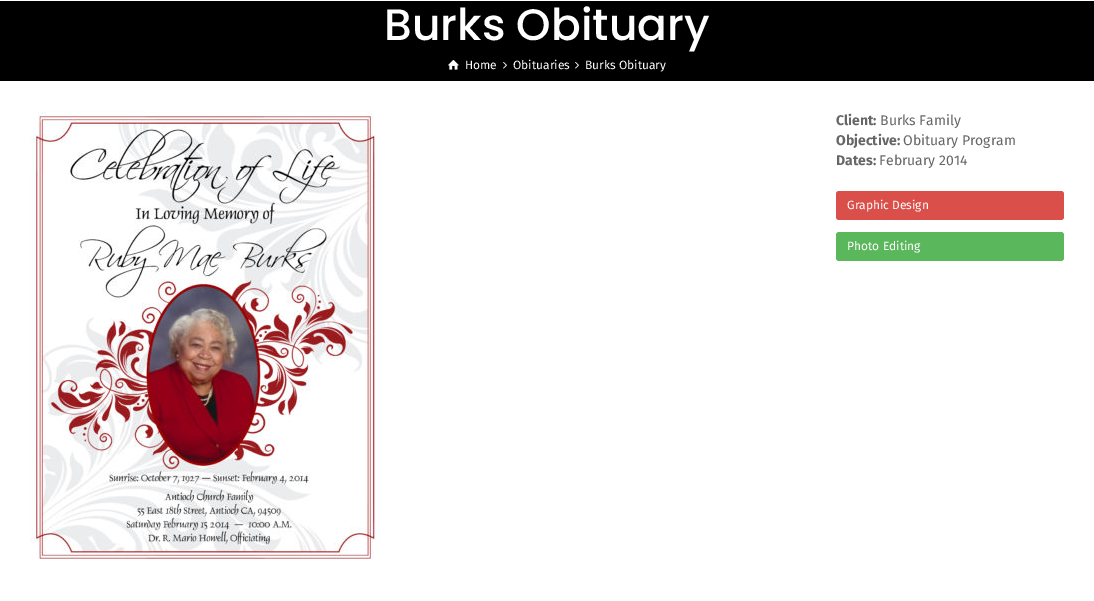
%!PS-Adobe-3.0
%%BoundingBox: 0 0 1094 601
%%LanguageLevel: 3
%%Pages: 1
%%EndComments
%%BeginProlog
/setink { 3 { 255 div 3 1 roll } repeat setrgbcolor } def
/usefont { [ exch dup neg 0 0 3 -1 roll 0 0 ] selectfont } def
/drawtext { setink usefont moveto show } def
/fillbox { setink rectfill } def
/rrect { 5 dict begin { /r /h /w /y /x } { exch def } forall
  x r add y moveto x w add y 2 copy h add r arct x w add y h add x 1 index r arct
  x y h add x y r arct x y 2 copy exch w add exch r arct closepath end } def
/drawimage { 5 dict begin { /h /w /y /x /name } { exch def } forall
  gsave x y translate w h scale
  w h 8 [w 0 0 h 0 0] name (r) file false 3 colorimage grestore end } def
%%EndProlog
%%BeginSetup
<< /PageSize [1094 601] >> setpagedevice
%%EndSetup
%%Page: 1 1
0 601 translate 1 -1 scale
4 setmiterlimit
0 0 1094 601 255 255 255 fillbox
0 1 1094 80 0 0 0 fillbox
(Burks Obituary) 384 40 /Poppins-Medium 44 255 255 255 drawtext
(assets/img1.rgb) 448 60 11 10 drawimage
(Home) 465 69 /FiraSans-Regular 12 255 255 255 drawtext
(assets/img2.rgb) 503 61 4 8 drawimage
(Obituaries) 513 69 /FiraSans-Regular 12 255 255 255 drawtext
(assets/img2.rgb) 575 61 4 8 drawimage
(Burks Obituary) 585 69 /FiraSans-Regular 12 255 255 255 drawtext
(assets/img3.rgb) 30 111 350 448 drawimage
(Client:) 836 125 /FiraSans-Bold 14 102 102 102 drawtext
(Burks Family) 880 125 /FiraSans-Regular 14 102 102 102 drawtext
(Objective:) 836 145 /FiraSans-Bold 14 102 102 102 drawtext
(Obituary Program) 903 145 /FiraSans-Regular 14 102 102 102 drawtext
(Dates:) 836 165 /FiraSans-Bold 14 102 102 102 drawtext
(February 2014) 879 165 /FiraSans-Regular 14 102 102 102 drawtext
218 79 73 setink
836 191 228 29 3 rrect fill
(Graphic Design) 847 209 /FiraSans-Regular 12 255 255 255 drawtext
91 183 91 setink
836 232 228 29 3 rrect fill
(Photo Editing) 847 250 /FiraSans-Regular 12 255 255 255 drawtext
showpage
%%EOF
